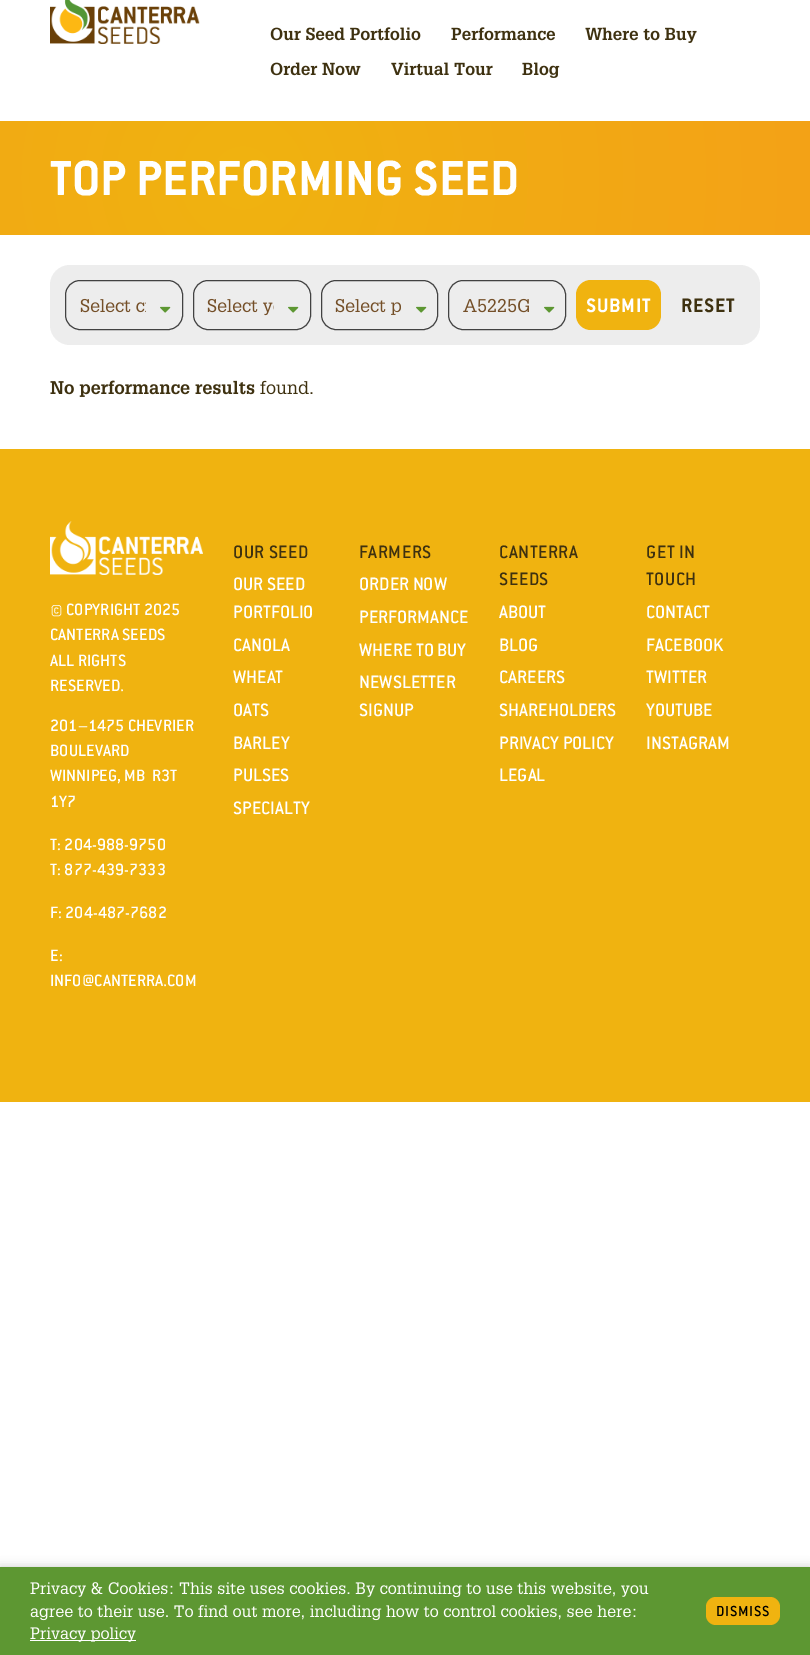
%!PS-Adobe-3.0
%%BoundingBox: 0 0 810 1655
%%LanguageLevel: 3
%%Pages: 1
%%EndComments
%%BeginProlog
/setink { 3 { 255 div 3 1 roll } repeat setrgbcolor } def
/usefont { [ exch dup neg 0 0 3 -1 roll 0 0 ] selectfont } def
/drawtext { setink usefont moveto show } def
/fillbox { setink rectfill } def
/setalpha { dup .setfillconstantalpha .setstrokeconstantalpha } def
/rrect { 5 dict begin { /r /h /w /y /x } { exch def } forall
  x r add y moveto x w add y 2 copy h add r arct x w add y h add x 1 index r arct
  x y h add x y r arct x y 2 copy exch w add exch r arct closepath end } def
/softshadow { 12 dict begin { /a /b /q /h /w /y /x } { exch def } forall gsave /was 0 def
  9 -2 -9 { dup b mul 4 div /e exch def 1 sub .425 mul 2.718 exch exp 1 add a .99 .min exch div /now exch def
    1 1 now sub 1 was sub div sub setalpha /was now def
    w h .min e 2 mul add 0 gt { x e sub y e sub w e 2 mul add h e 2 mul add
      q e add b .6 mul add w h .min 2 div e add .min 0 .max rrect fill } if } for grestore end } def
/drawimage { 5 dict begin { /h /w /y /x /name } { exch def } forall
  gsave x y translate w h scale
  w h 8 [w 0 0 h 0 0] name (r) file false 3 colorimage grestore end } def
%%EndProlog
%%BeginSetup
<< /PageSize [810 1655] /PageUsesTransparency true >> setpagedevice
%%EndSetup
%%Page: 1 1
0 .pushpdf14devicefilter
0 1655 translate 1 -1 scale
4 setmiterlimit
0 0 810 1655 255 255 255 fillbox
(assets/img1.rgb) 50 0 150 44 drawimage
(assets/img2.rgb) 270 27 151 14 drawimage
(assets/img3.rgb) 451 27 104 14 drawimage
(assets/img4.rgb) 585 27 112 16 drawimage
(assets/img5.rgb) 270 62 91 14 drawimage
(assets/img6.rgb) 391 62 102 14 drawimage
(assets/img7.rgb) 522 62 38 16 drawimage
gsave 0 121 moveto 810 121 lineto 810 235 lineto 0 235 lineto closepath clip newpath 243 178 translate 1140 1140 scale
<< /ShadingType 3 /ColorSpace /DeviceRGB /Coords [0 0 0 0 0 1] /Extend [true true] /Function << /FunctionType 2 /Domain [0 1] /C0 [0.941 0.702 0.063] /C1 [0.969 0.565 0.118] /N 1 >> >> shfill grestore
(TOP PERFORMING SEED) 50 195 /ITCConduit-Bold 54 255 255 255 drawtext
237 237 237 setink
50 265 710 80 20 rrect fill
66 66 66 setink
65.5 280.5 117 49 14.5 rrect stroke
(assets/img8.rgb) 80 298 66 15 drawimage
(assets/img9.rgb) 160 306 11 7 drawimage
193.5 280.5 117 49 14.5 rrect stroke
(assets/img10.rgb) 207 298 67 18 drawimage
(assets/img9.rgb) 288 306 11 7 drawimage
321.5 280.5 116 49 14.5 rrect stroke
(assets/img11.rgb) 335 298 66 17 drawimage
(assets/img9.rgb) 416 306 11 7 drawimage
448.5 280.5 117 49 14.5 rrect stroke
(assets/img12.rgb) 463 298 66 15 drawimage
(assets/img9.rgb) 544 306 11 7 drawimage
240 179 16 setink
576 280 85 50 15 rrect fill
/ITCConduit-Bold 21.5 usefont
255 255 255 setink
586 312 moveto 0.75 0 (SUBMIT) ashow
62 49 16 setink
681 312 moveto 0.75 0 (RESET) ashow
(assets/img13.rgb) 50 380 205 17 drawimage
(assets/img14.rgb) 260 380 53 15 drawimage
0 449 810 653 240 179 16 fillbox
(assets/img15.rgb) 50 521 153 54 drawimage
(© COPYRIGHT 2025) 50 615 /ITCConduit-Medium 18 255 255 255 drawtext
(CANTERRA SEEDS) 50 640 /ITCConduit-Medium 18 255 255 255 drawtext
(ALL RIGHTS) 50 666 /ITCConduit-Medium 18 255 255 255 drawtext
(RESERVED.) 50 691 /ITCConduit-Medium 18 255 255 255 drawtext
(201–1475 CHEVRIER) 50 731 /ITCConduit-Medium 18 255 255 255 drawtext
(BOULEVARD) 50 756 /ITCConduit-Medium 18 255 255 255 drawtext
(WINNIPEG, MB  R3T) 50 781 /ITCConduit-Medium 18 255 255 255 drawtext
(1Y7) 50 807 /ITCConduit-Medium 18 255 255 255 drawtext
(T: 204-988-9750) 50 850 /ITCConduit-Medium 18 255 255 255 drawtext
(T: 877-439-7333) 50 875 /ITCConduit-Medium 18 255 255 255 drawtext
(F: 204-487-7682) 50 918 /ITCConduit-Medium 18 255 255 255 drawtext
(E:) 50 961 /ITCConduit-Medium 18 255 255 255 drawtext
(INFO@CANTERRA.COM) 50 986 /ITCConduit-Medium 18 255 255 255 drawtext
/ITCConduit-Medium 19.75 usefont
62 49 16 setink
233 558 moveto 0.5 0 (OUR SEED) ashow
(OUR SEED) 233 590 /ITCConduit-Medium 19.75 255 255 255 drawtext
(PORTFOLIO) 233 618 /ITCConduit-Medium 19.75 255 255 255 drawtext
(CANOLA) 233 651 /ITCConduit-Medium 19.75 255 255 255 drawtext
(WHEAT) 233 683 /ITCConduit-Medium 19.75 255 255 255 drawtext
(OATS) 233 716 /ITCConduit-Medium 19.75 255 255 255 drawtext
(BARLEY) 233 749 /ITCConduit-Medium 19.75 255 255 255 drawtext
(PULSES) 233 781 /ITCConduit-Medium 19.75 255 255 255 drawtext
(SPECIALTY) 233 814 /ITCConduit-Medium 19.75 255 255 255 drawtext
62 49 16 setink
359 558 moveto 0.5 0 (FARMERS) ashow
(ORDER NOW) 359 590 /ITCConduit-Medium 19.75 255 255 255 drawtext
(PERFORMANCE) 359 623 /ITCConduit-Medium 19.75 255 255 255 drawtext
(WHERE TO BUY) 359 656 /ITCConduit-Medium 19.75 255 255 255 drawtext
(NEWSLETTER) 359 688 /ITCConduit-Medium 19.75 255 255 255 drawtext
(SIGNUP) 359 716 /ITCConduit-Medium 19.75 255 255 255 drawtext
62 49 16 setink
499 558 moveto 0.5 0 (CANTERRA) ashow
499 585 moveto 0.5 0 (SEEDS) ashow
(ABOUT) 499 618 /ITCConduit-Medium 19.75 255 255 255 drawtext
(BLOG) 499 651 /ITCConduit-Medium 19.75 255 255 255 drawtext
(CAREERS) 499 683 /ITCConduit-Medium 19.75 255 255 255 drawtext
(SHAREHOLDERS) 499 716 /ITCConduit-Medium 19.75 255 255 255 drawtext
(PRIVACY POLICY) 499 749 /ITCConduit-Medium 19.75 255 255 255 drawtext
(LEGAL) 499 781 /ITCConduit-Medium 19.75 255 255 255 drawtext
62 49 16 setink
646 558 moveto 0.5 0 (GET IN) ashow
646 585 moveto 0.5 0 (TOUCH) ashow
(CONTACT) 646 618 /ITCConduit-Medium 19.75 255 255 255 drawtext
(FACEBOOK) 646 651 /ITCConduit-Medium 19.75 255 255 255 drawtext
(TWITTER) 646 683 /ITCConduit-Medium 19.75 255 255 255 drawtext
(YOUTUBE) 646 716 /ITCConduit-Medium 19.75 255 255 255 drawtext
(INSTAGRAM) 646 749 /ITCConduit-Medium 19.75 255 255 255 drawtext
0 0 0 setink
0 1567 810 88 0 5 0.2 softshadow
0 1567 810 88 93 151 50 fillbox
(assets/img16.rgb) 30 1582 619 16 drawimage
(assets/img17.rgb) 30 1605 606 16 drawimage
30 1640 106 1 255 255 255 fillbox
(assets/img18.rgb) 30 1627 106 15 drawimage
240 179 16 setink
706 1597 74 28 10 rrect fill
/ITCConduit-Medium 16 usefont
0 0 0 setink
716 1616 moveto 0.75 0 (DISMISS) ashow
.poppdf14devicefilter showpage
%%EOF
